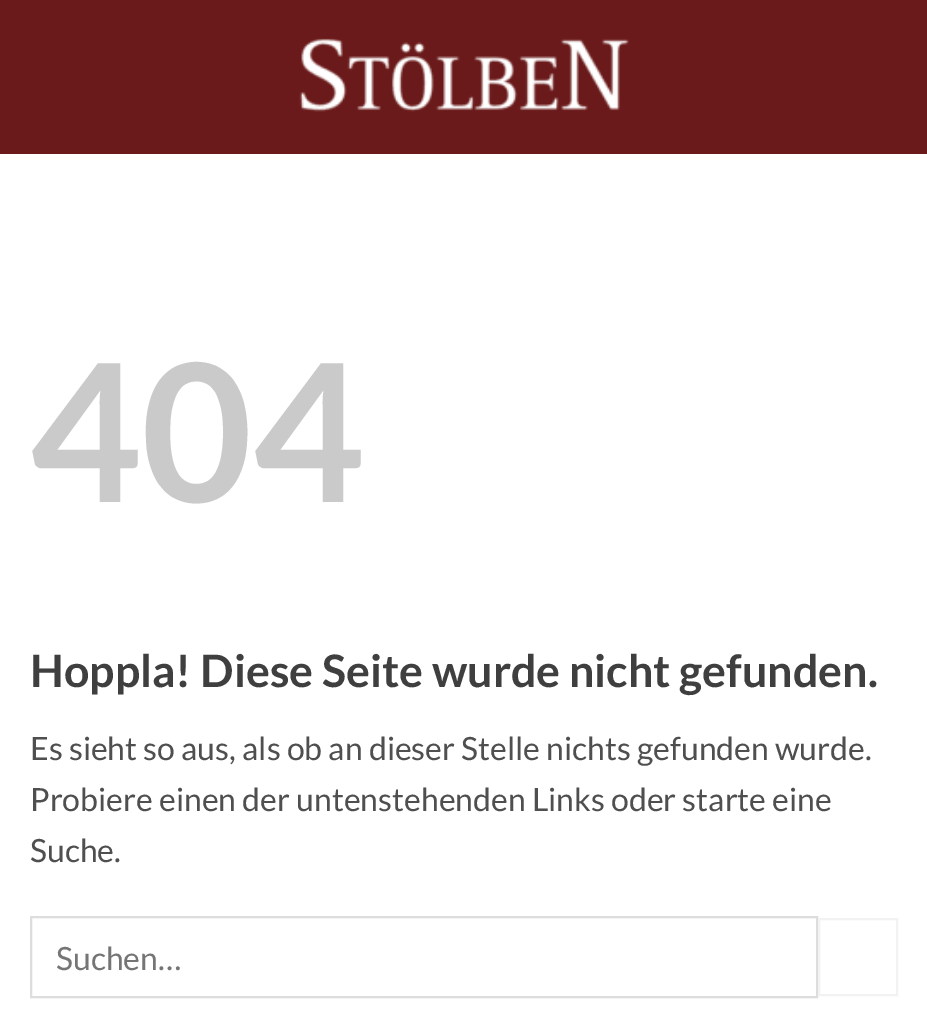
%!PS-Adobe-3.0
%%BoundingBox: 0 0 927 1014
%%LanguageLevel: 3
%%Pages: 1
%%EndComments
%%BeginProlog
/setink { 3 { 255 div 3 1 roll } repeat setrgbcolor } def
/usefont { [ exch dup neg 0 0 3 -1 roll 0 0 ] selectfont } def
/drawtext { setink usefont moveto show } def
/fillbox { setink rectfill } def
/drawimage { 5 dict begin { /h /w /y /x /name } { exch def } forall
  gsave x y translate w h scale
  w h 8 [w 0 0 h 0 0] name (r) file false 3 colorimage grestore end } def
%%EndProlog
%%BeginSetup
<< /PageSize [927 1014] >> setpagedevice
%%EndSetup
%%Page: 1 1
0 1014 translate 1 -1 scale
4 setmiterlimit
0 0 927 1014 255 255 255 fillbox
0 0 927 154 106 26 26 fillbox
(assets/img1.rgb) 299 38 330 74 drawimage
(404) 30 502 /Lato-Bold 192 202 202 202 drawtext
(Hoppla! Diese Seite wurde nicht gefunden.) 30 687 /Lato-Bold 44.75 63 63 63 drawtext
(Es sieht so aus, als ob an dieser Stelle nichts gefunden wurde.) 30 760 /Lato-Regular 32 79 79 79 drawtext
(Probiere einen der untenstehenden Links oder starte eine) 30 811 /Lato-Regular 32 79 79 79 drawtext
(Suche.) 30 862 /Lato-Regular 32 79 79 79 drawtext
221 221 221 setink
2 setlinewidth
31 917 786 80 rectstroke
(Suchen…) 56 970 /Lato-Regular 32 117 117 117 drawtext
242 242 242 setink
819 919 78 76 rectstroke
showpage
%%EOF
